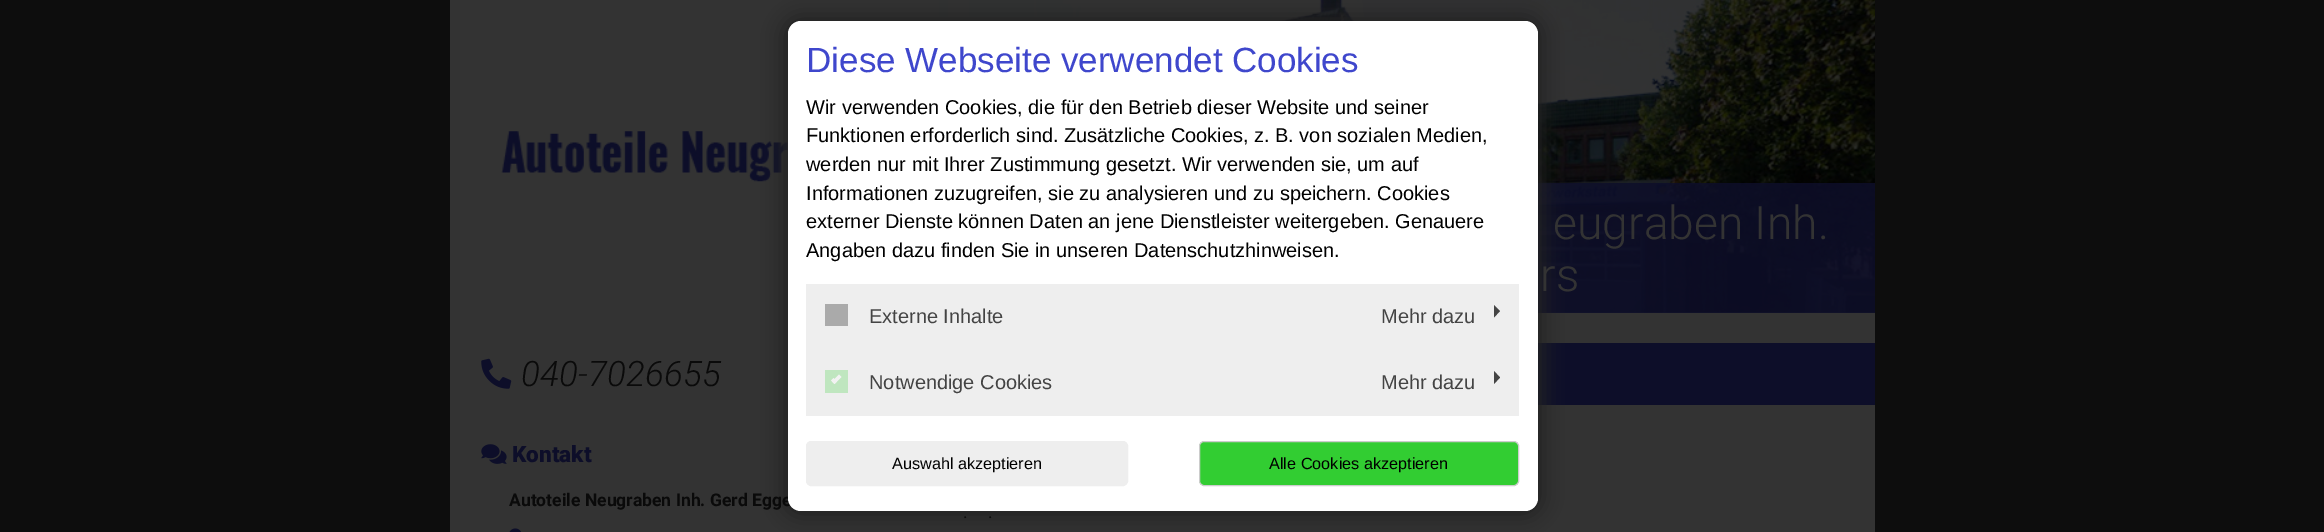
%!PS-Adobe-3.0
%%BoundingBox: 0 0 2324 532
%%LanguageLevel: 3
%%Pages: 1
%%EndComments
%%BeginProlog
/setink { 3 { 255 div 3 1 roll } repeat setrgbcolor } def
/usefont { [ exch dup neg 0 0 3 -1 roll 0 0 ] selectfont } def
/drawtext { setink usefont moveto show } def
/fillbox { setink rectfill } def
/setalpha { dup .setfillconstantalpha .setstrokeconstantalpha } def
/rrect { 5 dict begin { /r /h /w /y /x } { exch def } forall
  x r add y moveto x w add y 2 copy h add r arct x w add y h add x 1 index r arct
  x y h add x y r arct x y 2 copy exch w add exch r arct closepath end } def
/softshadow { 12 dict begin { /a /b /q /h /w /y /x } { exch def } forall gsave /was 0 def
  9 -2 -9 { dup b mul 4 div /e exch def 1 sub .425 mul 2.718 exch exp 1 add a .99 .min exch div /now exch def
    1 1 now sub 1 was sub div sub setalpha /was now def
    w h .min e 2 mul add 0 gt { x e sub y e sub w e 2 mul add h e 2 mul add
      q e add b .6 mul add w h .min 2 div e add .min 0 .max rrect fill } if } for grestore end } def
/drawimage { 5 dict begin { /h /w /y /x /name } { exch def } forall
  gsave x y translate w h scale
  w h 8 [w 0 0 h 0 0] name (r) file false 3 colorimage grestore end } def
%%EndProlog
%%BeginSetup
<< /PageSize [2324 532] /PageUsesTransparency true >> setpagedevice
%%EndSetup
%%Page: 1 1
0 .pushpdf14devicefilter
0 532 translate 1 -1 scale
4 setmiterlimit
0 0 2324 532 13 13 13 fillbox
450 0 1425 532 51 51 51 fillbox
(assets/img1.rgb) 501 131 287 51 drawimage
(assets/img2.rgb) 925 0 950 313 drawimage
0.85 setalpha
1538 183 337 130 13 14 41 fillbox
1 setalpha
1538 343 337 62 13 14 41 fillbox
34 34 34 setink
781 15 763 503 19 9.5 1 softshadow
(Autoteile Neugraben Inh. Gerd Egge) 509 506 /Roboto-Bold 17.5 10 10 10 drawtext
255 255 255 setink
788 21 750 490 13 rrect fill
(Diese Webseite verwendet Cookies) 806 72 /LiberationSans-Regular 35 63 71 204 drawtext
(Wir verwenden Cookies, die für den Betrieb dieser Website und seiner) 806 114 /LiberationSans-Regular 20 0 0 0 drawtext
(Funktionen erforderlich sind. Zusätzliche Cookies, z. B. von sozialen Medien,) 806 142 /LiberationSans-Regular 20 0 0 0 drawtext
(werden nur mit Ihrer Zustimmung gesetzt. Wir verwenden sie, um auf) 806 171 /LiberationSans-Regular 20 0 0 0 drawtext
(Informationen zuzugreifen, sie zu analysieren und zu speichern. Cookies) 806 200 /LiberationSans-Regular 20 0 0 0 drawtext
(externer Dienste können Daten an jene Dienstleister weitergeben. Genauere) 806 228 /LiberationSans-Regular 20 0 0 0 drawtext
(Angaben dazu finden Sie in unseren Datenschutzhinweisen.) 806 257 /LiberationSans-Regular 20 0 0 0 drawtext
806 284 713 132 238 238 238 fillbox
825 304 23 22 170 170 170 fillbox
(Externe Inhalte) 869 323 /LiberationSans-Regular 20 68 68 68 drawtext
(Mehr dazu) 1381 323 /LiberationSans-Regular 20 68 68 68 drawtext
1494 317.5 moveto 1494 305 lineto 1500 311 lineto closepath fill
825 370 23 23 191 230 191 fillbox
242 242 242 setink
839 374.5 moveto 841.5 377 lineto 834.5 384 lineto 832 381.5 lineto closepath fill
833.5 378 moveto 837 381.5 lineto 834.5 384 lineto 831 380.5 lineto closepath fill
(Notwendige Cookies) 869 389 /LiberationSans-Regular 20 68 68 68 drawtext
(Mehr dazu) 1381 389 /LiberationSans-Regular 20 68 68 68 drawtext
1494 384 moveto 1494 371 lineto 1500 377.5 lineto closepath fill
238 238 238 setink
806.5 441.5 321 44 4.5 rrect gsave fill grestore
stroke
(Auswahl akzeptieren) 892 469 /LiberationSans-Regular 16.25 0 0 0 drawtext
50 205 50 setink
1199.5 441.5 319 44 4.5 rrect gsave fill grestore
204 204 204 setink
stroke
(Alle Cookies akzeptieren) 1269 469 /LiberationSans-Regular 16.25 0 0 0 drawtext
(eugraben Inh.) 1553 239 /Roboto-Light 46.25 51 51 51 drawtext
(rs) 1540 291 /Roboto-Light 46.25 51 51 51 drawtext
(assets/img3.rgb) 481 358 31 31 drawimage
(040-7026655) 521 386 /Roboto-LightItalic 35 10 10 10 drawtext
(assets/img4.rgb) 481 444 26 20 drawimage
(Kontakt) 512 462 /Roboto-Black 22.5 13 14 41 drawtext
(assets/img5.rgb) 509 528 12 4 drawimage
(.) 963 518 /Roboto-Regular 17.5 10 10 10 drawtext
(.) 988 518 /Roboto-Regular 17.5 10 10 10 drawtext
.poppdf14devicefilter showpage
%%EOF
